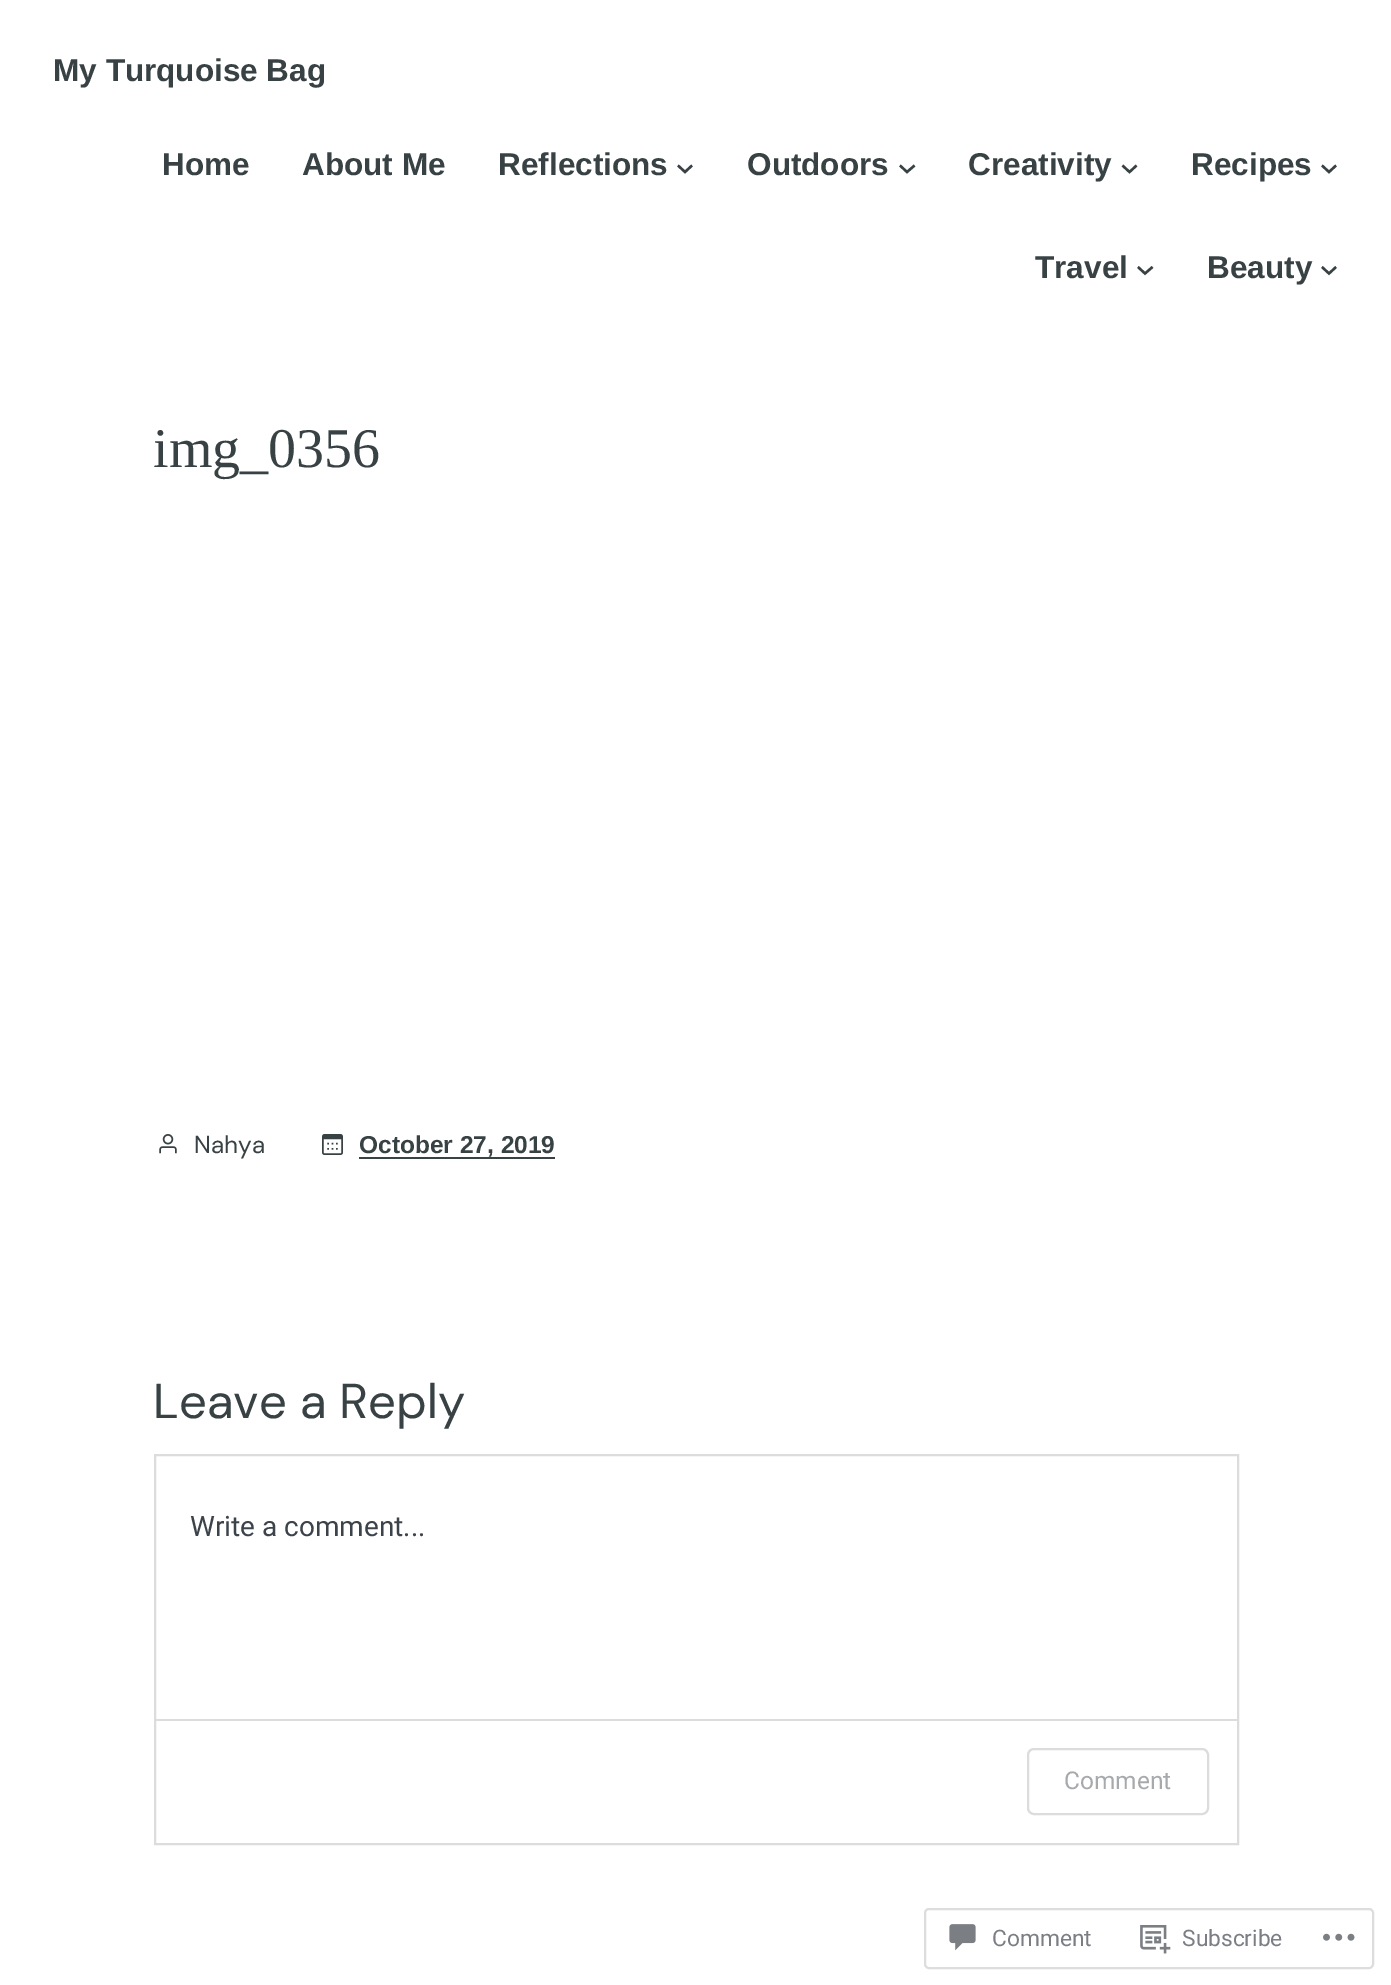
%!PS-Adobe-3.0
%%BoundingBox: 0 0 1391 1985
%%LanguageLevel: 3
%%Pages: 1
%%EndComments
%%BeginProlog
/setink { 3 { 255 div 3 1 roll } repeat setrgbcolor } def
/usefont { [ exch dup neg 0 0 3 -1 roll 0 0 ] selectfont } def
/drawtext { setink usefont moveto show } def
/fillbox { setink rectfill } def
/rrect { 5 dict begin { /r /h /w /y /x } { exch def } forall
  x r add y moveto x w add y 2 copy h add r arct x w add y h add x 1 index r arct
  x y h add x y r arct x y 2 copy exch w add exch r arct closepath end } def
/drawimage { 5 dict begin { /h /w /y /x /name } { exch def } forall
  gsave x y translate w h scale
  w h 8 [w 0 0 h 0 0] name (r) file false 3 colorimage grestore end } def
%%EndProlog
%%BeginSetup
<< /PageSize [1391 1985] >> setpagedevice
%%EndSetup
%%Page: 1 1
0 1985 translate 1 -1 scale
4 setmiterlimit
0 0 1391 1985 255 255 255 fillbox
(My Turquoise Bag) 53 81 /LiberationSans-Bold 31.5 56 65 67 drawtext
(Home) 162 175 /LiberationSans-Bold 31.5 56 65 67 drawtext
(About Me) 302 175 /LiberationSans-Bold 31.5 56 65 67 drawtext
(Reflections) 498 175 /LiberationSans-Bold 31.5 56 65 67 drawtext
2.4 setlinewidth
678 165.5 moveto 685 172 lineto 692 165.5 lineto stroke
(Outdoors) 747 175 /LiberationSans-Bold 31.5 56 65 67 drawtext
900 165.5 moveto 907 172 lineto 914.5 165.5 lineto stroke
(Creativity) 968 175 /LiberationSans-Bold 31.5 56 65 67 drawtext
1122.5 165.5 moveto 1129.5 172 lineto 1136.5 165.5 lineto stroke
(Recipes) 1191 175 /LiberationSans-Bold 31.5 56 65 67 drawtext
1322 165.5 moveto 1329 172 lineto 1336 165.5 lineto stroke
(Travel) 1035 278 /LiberationSans-Bold 31.5 56 65 67 drawtext
1138 267 moveto 1145 273.5 lineto 1152.5 267 lineto stroke
(Beauty) 1207 278 /LiberationSans-Bold 31.5 56 65 67 drawtext
1322 267 moveto 1329 273.5 lineto 1336 267 lineto stroke
(img_0356) 153 467 /LiberationSerif-Regular 56 56 65 67 drawtext
(assets/img1.rgb) 159 1134 18 20 drawimage
(Nahya) 194 1153 /DMSans-Regular 24.5 56 65 67 drawtext
(assets/img2.rgb) 322 1134 21 21 drawimage
(October 27, 2019) 359 1153 /LiberationSans-Bold 24.5 56 65 67 drawtext
359 1157 196 2 56 65 67 fillbox
(Leave a Reply) 153 1418 /DMSans-Regular 49 56 65 67 drawtext
220 220 222 setink
2 setlinewidth
155 1455 1083 389 rectstroke
(Write a comment...) 190 1536 /Roboto-Regular 28 60 67 74 drawtext
156 1719 1081 2 220 220 222 fillbox
1028 1749 180 65 6 rrect stroke
(Comment) 1064 1789 /Roboto-Regular 24.5 167 170 173 drawtext
221 221 223 setink
925 1909 448 59 4 rrect stroke
(assets/img3.rgb) 949 1924 27 27 drawimage
(Comment) 992 1946 /Roboto-Regular 22.75 123 127 133 drawtext
(assets/img4.rgb) 1140 1925 31 29 drawimage
(Subscribe) 1182 1946 /Roboto-Regular 22.75 123 127 133 drawtext
(assets/img5.rgb) 1323 1933 32 8 drawimage
showpage
%%EOF
